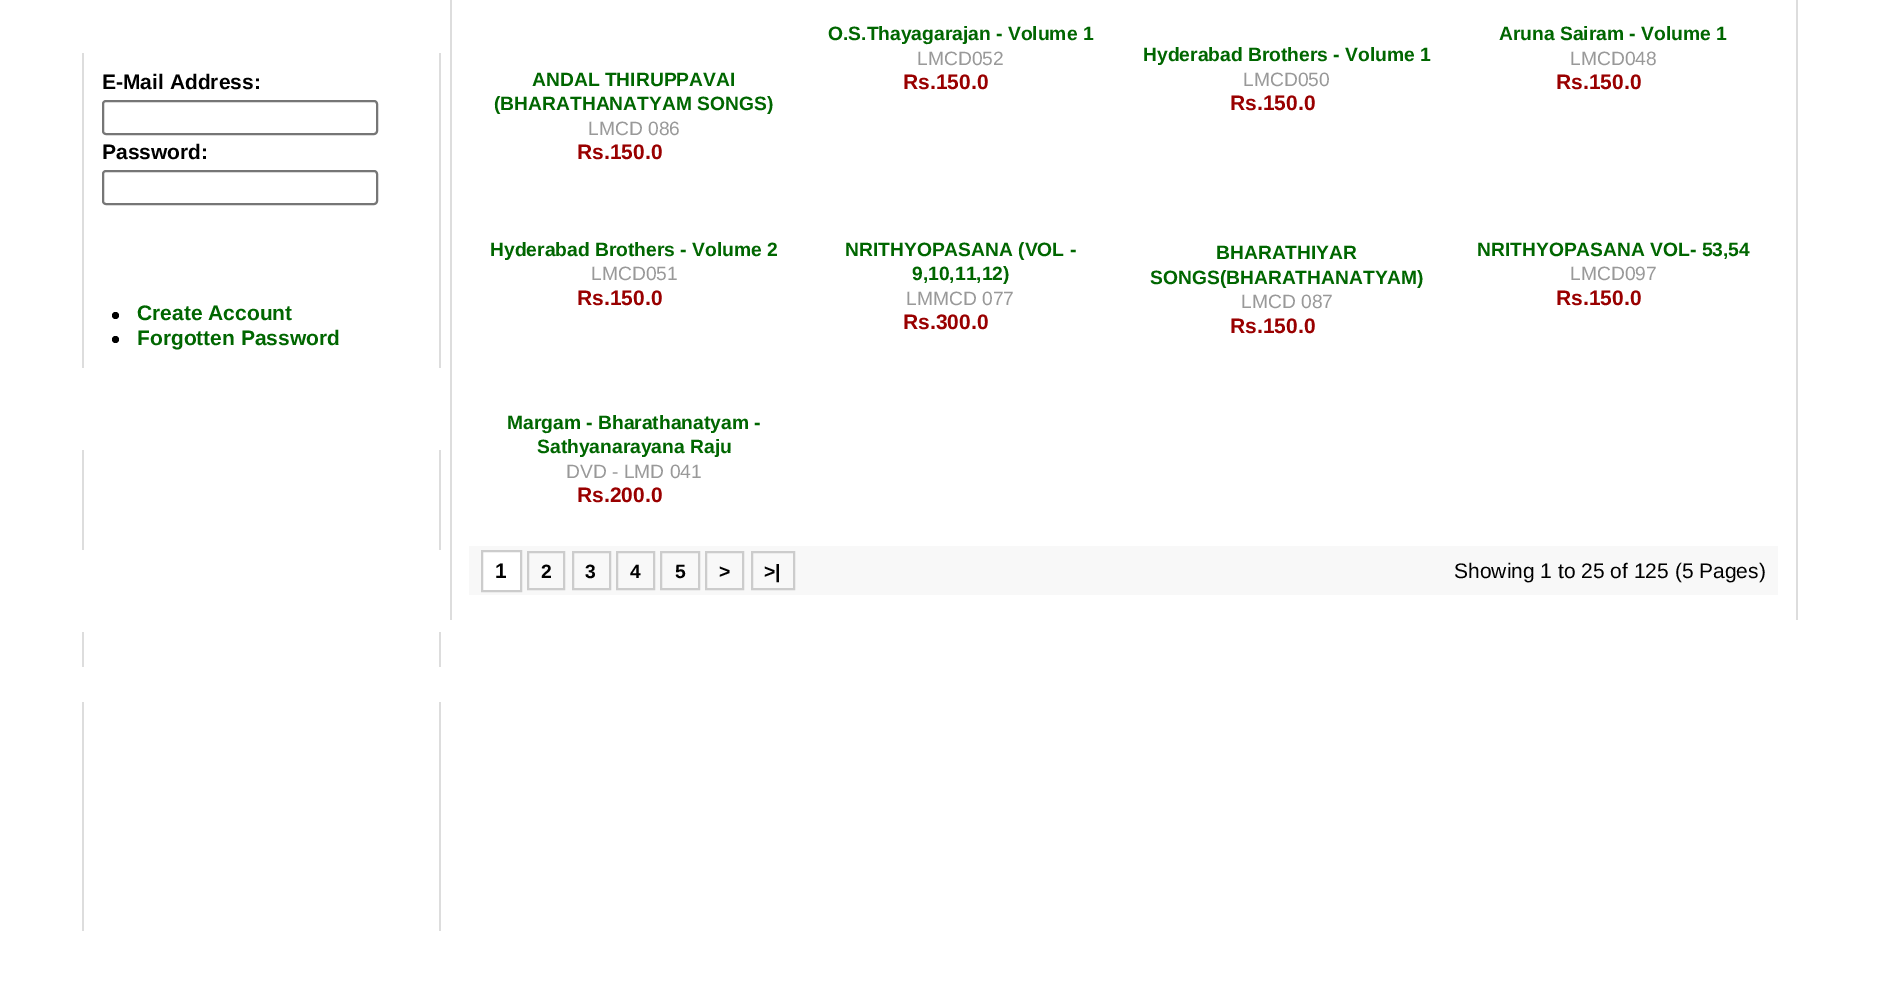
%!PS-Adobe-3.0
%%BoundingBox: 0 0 1878 1006
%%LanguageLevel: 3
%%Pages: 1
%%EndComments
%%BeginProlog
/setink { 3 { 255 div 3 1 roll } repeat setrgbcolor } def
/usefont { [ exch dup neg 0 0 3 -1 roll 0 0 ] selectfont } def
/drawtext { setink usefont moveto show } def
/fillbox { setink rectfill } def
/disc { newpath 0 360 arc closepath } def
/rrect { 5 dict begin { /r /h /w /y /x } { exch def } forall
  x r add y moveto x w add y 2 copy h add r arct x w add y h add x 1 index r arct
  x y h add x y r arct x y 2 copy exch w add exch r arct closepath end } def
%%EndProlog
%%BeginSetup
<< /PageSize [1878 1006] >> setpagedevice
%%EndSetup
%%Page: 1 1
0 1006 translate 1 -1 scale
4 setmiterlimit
0 0 1878 1006 255 255 255 fillbox
439 53 2 315 221 221 221 fillbox
82 53 2 315 221 221 221 fillbox
(E-Mail Address:) 102 89 /LiberationSans-Bold 21 0 0 0 drawtext
118 118 118 setink
2 setlinewidth
103 101 274 33 3 rrect stroke
(Password:) 102 159 /LiberationSans-Bold 21 0 0 0 drawtext
118 118 118 setink
103 171 274 33 3 rrect stroke
0 0 0 setink
115.5 315.5 3.5 disc fill
(Create Account) 137 320 /LiberationSans-Bold 21 0 102 0 drawtext
0 0 0 setink
115.5 339.5 3.5 disc fill
(Forgotten Password) 137 345 /LiberationSans-Bold 21 0 102 0 drawtext
439 450 2 100 221 221 221 fillbox
82 450 2 100 221 221 221 fillbox
439 632 2 35 221 221 221 fillbox
82 632 2 35 221 221 221 fillbox
439 702 2 229 221 221 221 fillbox
82 702 2 229 221 221 221 fillbox
1796 0 2 620 221 221 221 fillbox
450 0 2 620 221 221 221 fillbox
(ANDAL THIRUPPAVAI) 532 86 /LiberationSans-Bold 19.25 0 102 0 drawtext
(\(BHARATHANATYAM SONGS\)) 494 110 /LiberationSans-Bold 19.25 0 102 0 drawtext
(LMCD 086) 588 135 /LiberationSans-Regular 19.25 153 153 153 drawtext
(Rs.150.0) 577 159 /LiberationSans-Bold 21 153 0 0 drawtext
(O.S.Thayagarajan - Volume 1) 828 40 /LiberationSans-Bold 19.25 0 102 0 drawtext
(LMCD052) 917 65 /LiberationSans-Regular 19.25 153 153 153 drawtext
(Rs.150.0) 903 89 /LiberationSans-Bold 21 153 0 0 drawtext
(Hyderabad Brothers - Volume 1) 1143 61 /LiberationSans-Bold 19.25 0 102 0 drawtext
(LMCD050) 1243 86 /LiberationSans-Regular 19.25 153 153 153 drawtext
(Rs.150.0) 1230 110 /LiberationSans-Bold 21 153 0 0 drawtext
(Aruna Sairam - Volume 1) 1499 40 /LiberationSans-Bold 19.25 0 102 0 drawtext
(LMCD048) 1570 65 /LiberationSans-Regular 19.25 153 153 153 drawtext
(Rs.150.0) 1556 89 /LiberationSans-Bold 21 153 0 0 drawtext
(Hyderabad Brothers - Volume 2) 490 256 /LiberationSans-Bold 19.25 0 102 0 drawtext
(LMCD051) 591 280 /LiberationSans-Regular 19.25 153 153 153 drawtext
(Rs.150.0) 577 305 /LiberationSans-Bold 21 153 0 0 drawtext
(NRITHYOPASANA \(VOL -) 845 256 /LiberationSans-Bold 19.25 0 102 0 drawtext
(9,10,11,12\)) 912 280 /LiberationSans-Bold 19.25 0 102 0 drawtext
(LMMCD 077) 906 305 /LiberationSans-Regular 19.25 153 153 153 drawtext
(Rs.300.0) 903 329 /LiberationSans-Bold 21 153 0 0 drawtext
(BHARATHIYAR) 1216 259 /LiberationSans-Bold 19.25 0 102 0 drawtext
(SONGS\(BHARATHANATYAM\)) 1150 284 /LiberationSans-Bold 19.25 0 102 0 drawtext
(LMCD 087) 1241 308 /LiberationSans-Regular 19.25 153 153 153 drawtext
(Rs.150.0) 1230 333 /LiberationSans-Bold 21 153 0 0 drawtext
(NRITHYOPASANA VOL- 53,54) 1477 256 /LiberationSans-Bold 19.25 0 102 0 drawtext
(LMCD097) 1570 280 /LiberationSans-Regular 19.25 153 153 153 drawtext
(Rs.150.0) 1556 305 /LiberationSans-Bold 21 153 0 0 drawtext
(Margam - Bharathanatyam -) 507 429 /LiberationSans-Bold 19.25 0 102 0 drawtext
(Sathyanarayana Raju) 537 453 /LiberationSans-Bold 19.25 0 102 0 drawtext
(DVD - LMD 041) 566 478 /LiberationSans-Regular 19.25 153 153 153 drawtext
(Rs.200.0) 577 502 /LiberationSans-Bold 21 153 0 0 drawtext
469 546 1309 49 248 248 248 fillbox
255 255 255 setink
482 551 moveto 521 551 lineto 521 591 lineto 482 591 lineto closepath gsave fill grestore
204 204 204 setink
stroke
(1) 495 578 /LiberationSans-Bold 21 0 0 0 drawtext
204 204 204 setink
528 552 36 37 rectstroke
(2) 541 578 /LiberationSans-Bold 19.25 0 0 0 drawtext
204 204 204 setink
573 552 37 37 rectstroke
(3) 585 578 /LiberationSans-Bold 19.25 0 0 0 drawtext
204 204 204 setink
617 552 37 37 rectstroke
(4) 630 578 /LiberationSans-Bold 19.25 0 0 0 drawtext
204 204 204 setink
661 552 38 37 rectstroke
(5) 675 578 /LiberationSans-Bold 19.25 0 0 0 drawtext
204 204 204 setink
706 552 37 37 rectstroke
(>) 719 578 /LiberationSans-Bold 19.25 0 0 0 drawtext
204 204 204 setink
752 552 42 37 rectstroke
(>|) 764 578 /LiberationSans-Bold 19.25 0 0 0 drawtext
(Showing 1 to 25 of 125 \(5 Pages\)) 1454 578 /LiberationSans-Regular 21 0 0 0 drawtext
showpage
%%EOF
